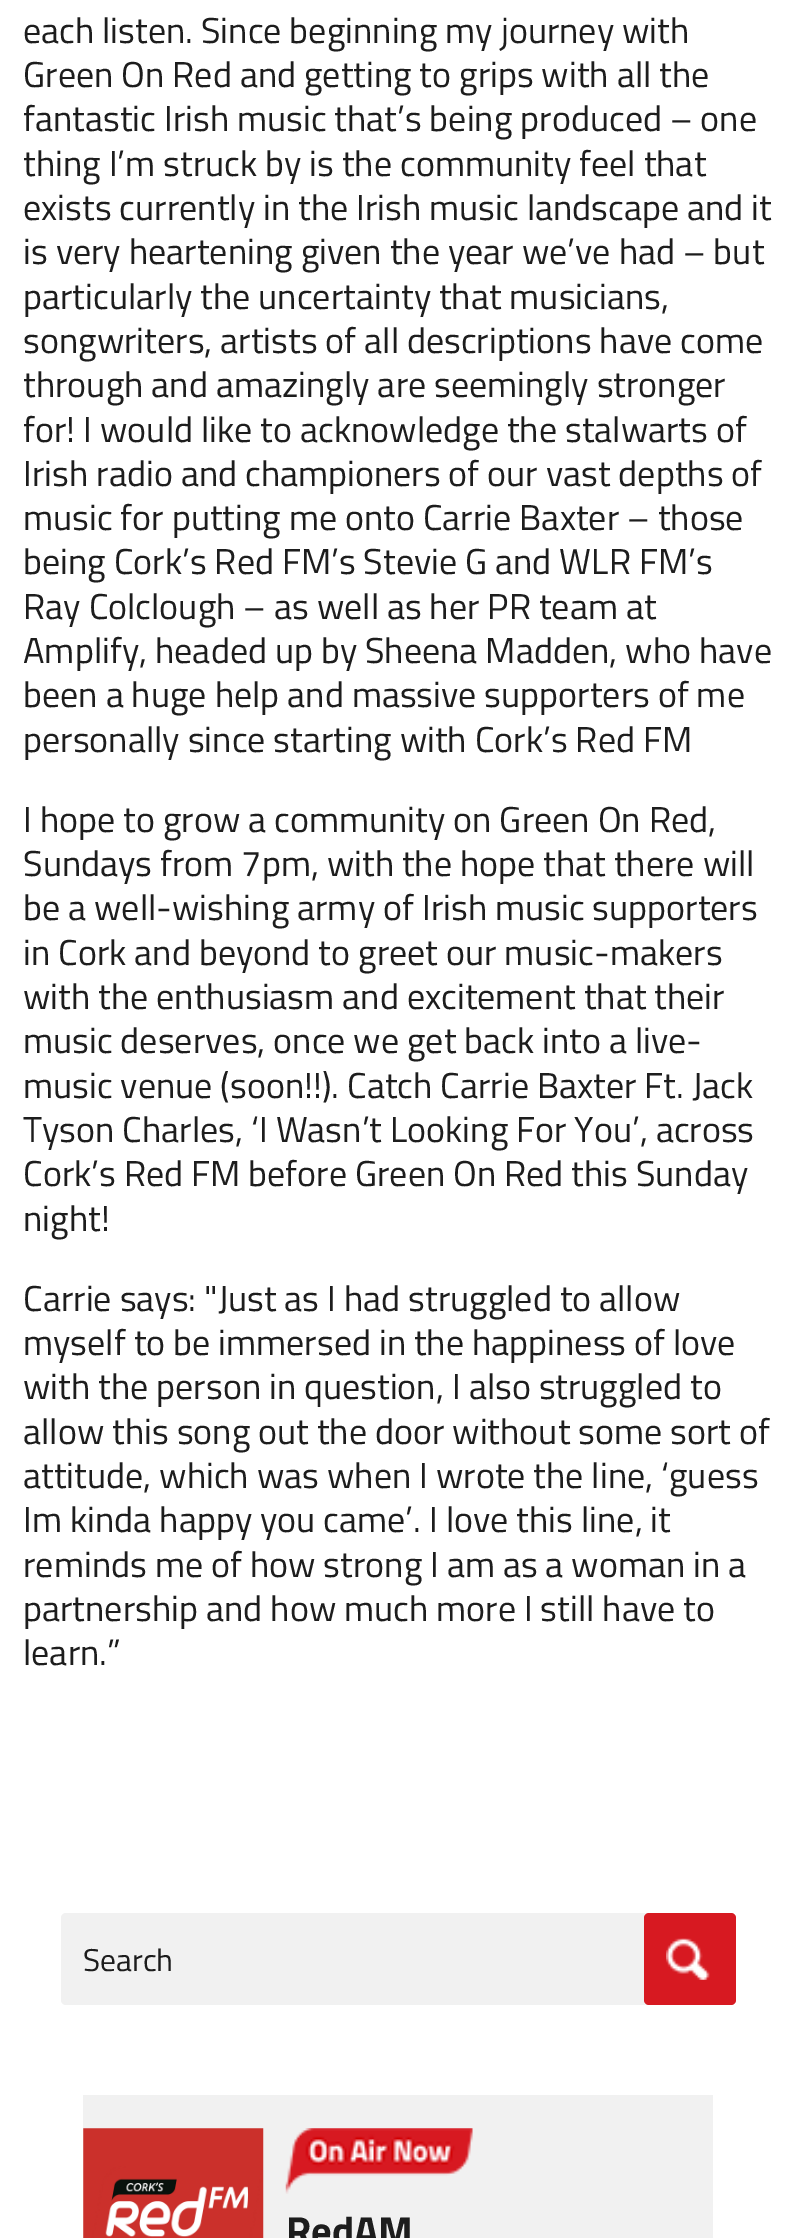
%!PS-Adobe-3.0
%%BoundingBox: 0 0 796 2238
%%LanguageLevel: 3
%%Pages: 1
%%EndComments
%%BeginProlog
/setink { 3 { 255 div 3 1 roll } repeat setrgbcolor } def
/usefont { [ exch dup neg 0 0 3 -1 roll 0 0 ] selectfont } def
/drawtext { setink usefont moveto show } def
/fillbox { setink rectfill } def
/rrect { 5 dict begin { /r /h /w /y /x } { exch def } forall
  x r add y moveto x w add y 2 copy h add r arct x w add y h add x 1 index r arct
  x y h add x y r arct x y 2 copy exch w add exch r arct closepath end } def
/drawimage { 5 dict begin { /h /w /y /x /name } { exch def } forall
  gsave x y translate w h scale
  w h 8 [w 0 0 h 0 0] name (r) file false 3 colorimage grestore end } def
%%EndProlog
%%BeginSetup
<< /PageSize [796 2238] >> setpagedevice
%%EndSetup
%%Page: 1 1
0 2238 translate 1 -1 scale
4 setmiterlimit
0 0 796 2238 255 255 255 fillbox
(each listen. Since beginning my journey with) 23 43 /TitilliumWeb-Regular 36 29 29 29 drawtext
(Green On Red and getting to grips with all the) 23 87 /TitilliumWeb-Regular 36 29 29 29 drawtext
(fantastic Irish music that’s being produced – one) 23 131 /TitilliumWeb-Regular 36 29 29 29 drawtext
(thing I’m struck by is the community feel that) 23 176 /TitilliumWeb-Regular 36 29 29 29 drawtext
(exists currently in the Irish music landscape and it) 23 220 /TitilliumWeb-Regular 36 29 29 29 drawtext
(is very heartening given the year we’ve had – but) 23 264 /TitilliumWeb-Regular 36 29 29 29 drawtext
(particularly the uncertainty that musicians,) 23 309 /TitilliumWeb-Regular 36 29 29 29 drawtext
(songwriters, artists of all descriptions have come) 23 353 /TitilliumWeb-Regular 36 29 29 29 drawtext
(through and amazingly are seemingly stronger) 23 397 /TitilliumWeb-Regular 36 29 29 29 drawtext
(for! I would like to acknowledge the stalwarts of) 23 442 /TitilliumWeb-Regular 36 29 29 29 drawtext
(Irish radio and championers of our vast depths of) 23 486 /TitilliumWeb-Regular 36 29 29 29 drawtext
(music for putting me onto Carrie Baxter – those) 23 530 /TitilliumWeb-Regular 36 29 29 29 drawtext
(being Cork’s Red FM’s Stevie G and WLR FM’s) 23 574 /TitilliumWeb-Regular 36 29 29 29 drawtext
(Ray Colclough – as well as her PR team at) 23 619 /TitilliumWeb-Regular 36 29 29 29 drawtext
(Amplify, headed up by Sheena Madden, who have) 23 663 /TitilliumWeb-Regular 36 29 29 29 drawtext
(been a huge help and massive supporters of me) 23 707 /TitilliumWeb-Regular 36 29 29 29 drawtext
(personally since starting with Cork’s Red FM) 23 752 /TitilliumWeb-Regular 36 29 29 29 drawtext
(I hope to grow a community on Green On Red,) 23 832 /TitilliumWeb-Regular 36 29 29 29 drawtext
(Sundays from 7pm, with the hope that there will) 23 876 /TitilliumWeb-Regular 36 29 29 29 drawtext
(be a well-wishing army of Irish music supporters) 23 920 /TitilliumWeb-Regular 36 29 29 29 drawtext
(in Cork and beyond to greet our music-makers) 23 965 /TitilliumWeb-Regular 36 29 29 29 drawtext
(with the enthusiasm and excitement that their) 23 1009 /TitilliumWeb-Regular 36 29 29 29 drawtext
(music deserves, once we get back into a live-) 23 1053 /TitilliumWeb-Regular 36 29 29 29 drawtext
(music venue \(soon!!\). Catch Carrie Baxter Ft. Jack) 23 1098 /TitilliumWeb-Regular 36 29 29 29 drawtext
(Tyson Charles, ‘I Wasn’t Looking For You’, across) 23 1142 /TitilliumWeb-Regular 36 29 29 29 drawtext
(Cork’s Red FM before Green On Red this Sunday) 23 1186 /TitilliumWeb-Regular 36 29 29 29 drawtext
(night!) 23 1231 /TitilliumWeb-Regular 36 29 29 29 drawtext
(Carrie says: "Just as I had struggled to allow) 23 1311 /TitilliumWeb-Regular 36 29 29 29 drawtext
(myself to be immersed in the happiness of love) 23 1355 /TitilliumWeb-Regular 36 29 29 29 drawtext
(with the person in question, I also struggled to) 23 1399 /TitilliumWeb-Regular 36 29 29 29 drawtext
(allow this song out the door without some sort of) 23 1444 /TitilliumWeb-Regular 36 29 29 29 drawtext
(attitude, which was when I wrote the line, ‘guess) 23 1488 /TitilliumWeb-Regular 36 29 29 29 drawtext
(Im kinda happy you came’. I love this line, it) 23 1532 /TitilliumWeb-Regular 36 29 29 29 drawtext
(reminds me of how strong I am as a woman in a) 23 1577 /TitilliumWeb-Regular 36 29 29 29 drawtext
(partnership and how much more I still have to) 23 1621 /TitilliumWeb-Regular 36 29 29 29 drawtext
(learn.”) 23 1665 /TitilliumWeb-Regular 36 29 29 29 drawtext
241 241 241 setink
61 1913 675 92 5 rrect fill
(Search) 83 1971 /TitilliumWeb-Regular 31.5 29 29 29 drawtext
215 25 33 setink
644 1913 92 92 5 rrect fill
(assets/img1.rgb) 666 1938 44 42 drawimage
83 2095 630 143 241 241 241 fillbox
(assets/img2.rgb) 83 2128 181 110 drawimage
(assets/img3.rgb) 285 2128 188 66 drawimage
(RedAM) 286 2245 /TitilliumWeb-Bold 40.5 29 29 29 drawtext
showpage
%%EOF
